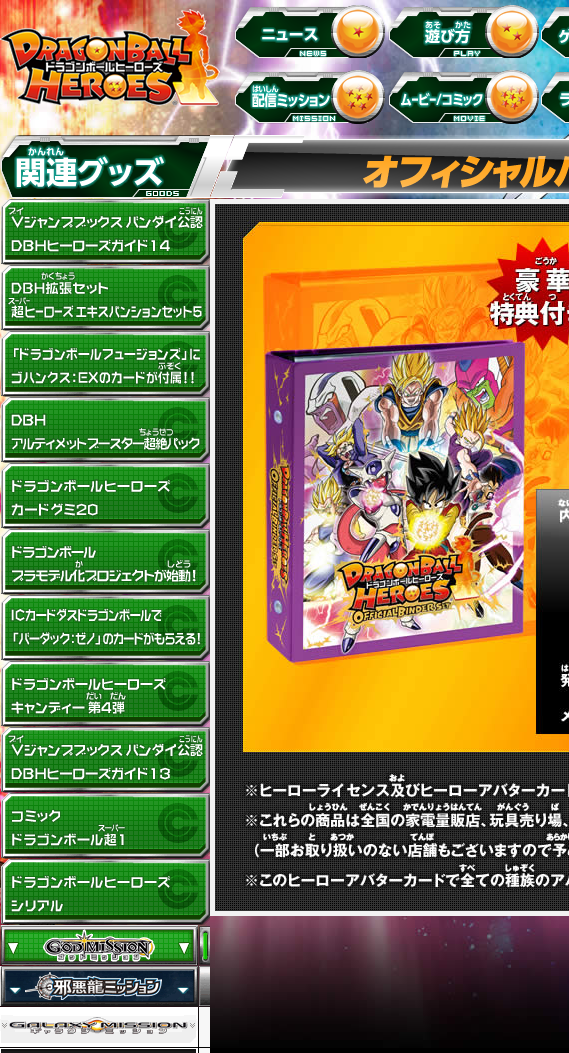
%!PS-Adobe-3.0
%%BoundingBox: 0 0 569 1053
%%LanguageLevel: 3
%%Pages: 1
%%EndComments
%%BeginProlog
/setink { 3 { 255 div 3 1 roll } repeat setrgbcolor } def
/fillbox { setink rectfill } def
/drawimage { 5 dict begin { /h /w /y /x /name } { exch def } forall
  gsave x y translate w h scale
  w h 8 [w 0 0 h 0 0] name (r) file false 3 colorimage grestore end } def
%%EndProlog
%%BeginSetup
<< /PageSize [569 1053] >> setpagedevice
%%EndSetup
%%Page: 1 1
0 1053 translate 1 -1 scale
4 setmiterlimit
0 0 569 1053 0 0 0 fillbox
(assets/img1.rgb) 0 0 569 1048 drawimage
(assets/img2.rgb) 0 9 220 97 drawimage
(assets/img3.rgb) 235 5 150 53 drawimage
(assets/img4.rgb) 388 5 151 53 drawimage
(assets/img5.rgb) 541 6 28 52 drawimage
(assets/img6.rgb) 235 70 150 54 drawimage
(assets/img7.rgb) 388 70 151 54 drawimage
(assets/img8.rgb) 541 71 28 53 drawimage
(assets/img9.rgb) 0 135 210 63 drawimage
(assets/img10.rgb) 1 199 209 66 drawimage
(assets/img11.rgb) 1 265 209 66 drawimage
(assets/img12.rgb) 1 331 209 66 drawimage
(assets/img13.rgb) 1 397 209 66 drawimage
(assets/img14.rgb) 1 463 209 66 drawimage
(assets/img15.rgb) 1 529 209 66 drawimage
(assets/img16.rgb) 1 595 209 66 drawimage
(assets/img17.rgb) 1 661 209 66 drawimage
(assets/img18.rgb) 1 727 209 66 drawimage
(assets/img19.rgb) 1 793 209 66 drawimage
(assets/img20.rgb) 1 859 209 66 drawimage
(assets/img21.rgb) 0 925 210 40 drawimage
(assets/img22.rgb) 0 966 210 40 drawimage
(assets/img23.rgb) 0 1007 210 40 drawimage
(assets/img24.rgb) 0 1048 210 5 drawimage
(assets/img25.rgb) 210 135 359 63 drawimage
210 199 359 717 242 242 242 fillbox
(assets/img26.rgb) 215 900 354 11 drawimage
(assets/img27.rgb) 215 204 354 696 drawimage
showpage
%%EOF
